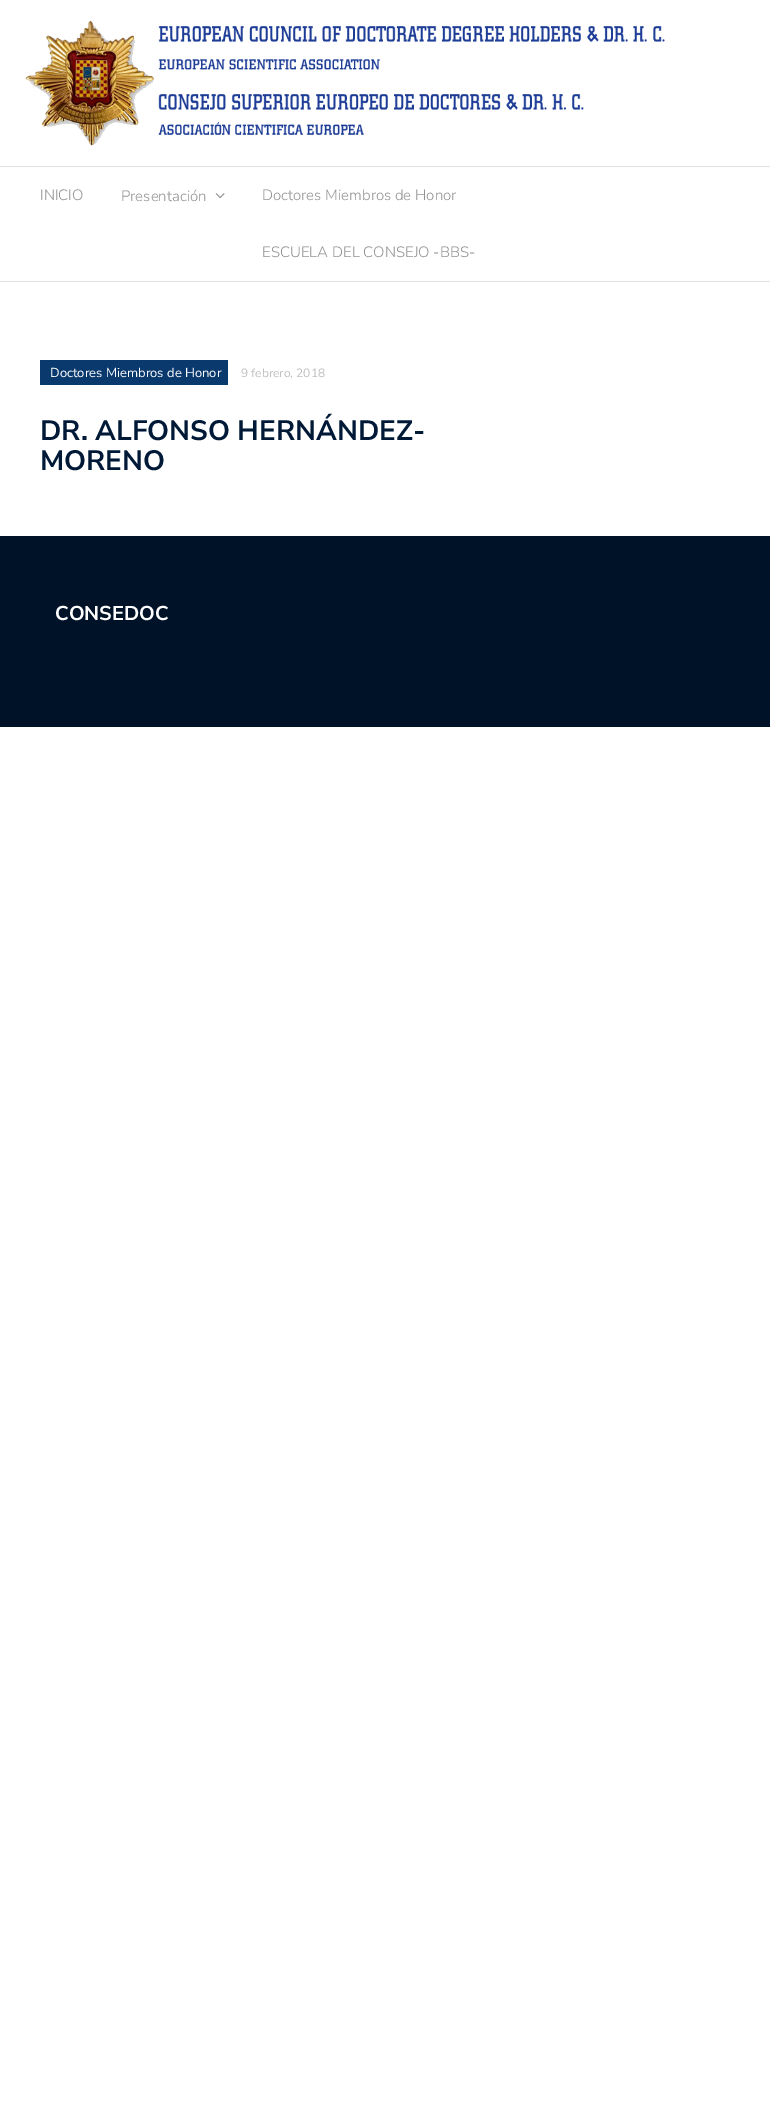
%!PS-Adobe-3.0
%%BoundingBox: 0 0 770 2104
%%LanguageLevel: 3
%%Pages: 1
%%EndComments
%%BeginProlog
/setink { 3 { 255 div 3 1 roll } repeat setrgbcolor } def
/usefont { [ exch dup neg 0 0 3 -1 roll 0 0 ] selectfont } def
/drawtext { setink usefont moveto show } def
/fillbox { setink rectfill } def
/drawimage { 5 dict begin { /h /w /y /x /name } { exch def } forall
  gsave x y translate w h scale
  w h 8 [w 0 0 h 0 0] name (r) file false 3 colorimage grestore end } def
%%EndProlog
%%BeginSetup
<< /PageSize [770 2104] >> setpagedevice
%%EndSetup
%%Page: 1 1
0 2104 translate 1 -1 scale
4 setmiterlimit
0 0 770 2104 255 255 255 fillbox
(assets/img1.rgb) 25 20 640 126 drawimage
0 166 770 1 225 225 225 fillbox
0 281 770 1 225 225 225 fillbox
(INICIO) 40 200 /NunitoSans-Light 15 147 147 147 drawtext
(Presentación) 121 201 /NunitoSans-Light 15 147 147 147 drawtext
(assets/img2.rgb) 215 193 10 6 drawimage
(Doctores Miembros de Honor) 262 200 /NunitoSans-Light 15 147 147 147 drawtext
(ESCUELA DEL CONSEJO -BBS-) 262 257 /NunitoSans-Light 15 147 147 147 drawtext
40 360 188 25 10 57 109 fillbox
(Doctores Miembros de Honor) 50 377 /NunitoSans-Regular 13 255 255 255 drawtext
(9 febrero, 2018) 241 377 /NunitoSans-Regular 12 191 191 191 drawtext
(DR. ALFONSO HERNÁNDEZ-) 40 440 /NunitoSans-Bold 28 0 25 54 drawtext
(MORENO) 40 470 /NunitoSans-Bold 28 0 25 54 drawtext
0 536 770 191 0 18 40 fillbox
(CONSEDOC) 55 620 /NunitoSans-Bold 20 255 255 255 drawtext
showpage
%%EOF
